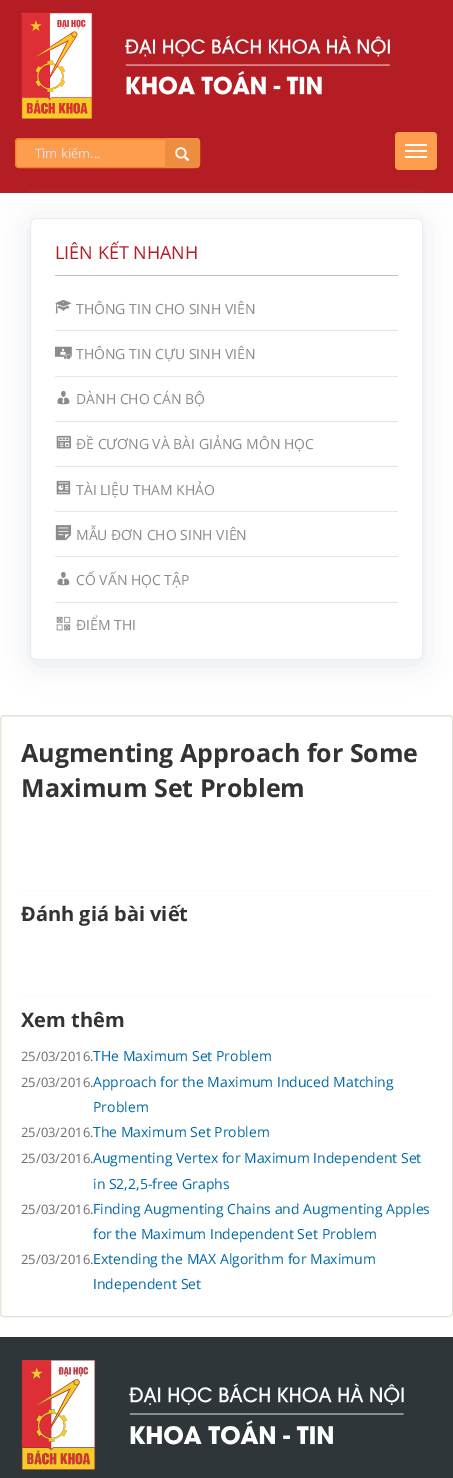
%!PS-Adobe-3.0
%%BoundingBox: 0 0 453 1478
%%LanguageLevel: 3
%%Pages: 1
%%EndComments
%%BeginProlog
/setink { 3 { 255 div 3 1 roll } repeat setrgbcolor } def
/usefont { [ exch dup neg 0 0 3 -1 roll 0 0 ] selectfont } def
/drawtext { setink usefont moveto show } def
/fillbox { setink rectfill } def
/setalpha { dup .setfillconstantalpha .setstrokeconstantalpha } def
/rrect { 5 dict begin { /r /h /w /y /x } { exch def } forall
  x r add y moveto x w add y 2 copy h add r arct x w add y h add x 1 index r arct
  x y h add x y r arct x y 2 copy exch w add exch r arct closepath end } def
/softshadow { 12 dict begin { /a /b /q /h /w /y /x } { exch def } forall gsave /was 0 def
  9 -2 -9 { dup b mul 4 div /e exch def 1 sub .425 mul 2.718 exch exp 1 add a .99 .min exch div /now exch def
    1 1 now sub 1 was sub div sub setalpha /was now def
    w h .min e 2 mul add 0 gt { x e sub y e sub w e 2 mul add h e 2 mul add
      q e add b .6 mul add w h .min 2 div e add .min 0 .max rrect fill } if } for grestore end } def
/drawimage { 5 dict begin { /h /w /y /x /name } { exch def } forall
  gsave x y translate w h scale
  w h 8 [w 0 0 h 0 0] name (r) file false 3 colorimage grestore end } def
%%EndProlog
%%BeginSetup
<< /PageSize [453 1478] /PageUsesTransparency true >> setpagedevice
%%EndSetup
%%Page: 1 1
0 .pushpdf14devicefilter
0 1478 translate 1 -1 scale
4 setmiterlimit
0 0 453 1478 255 255 255 fillbox
0 0 453 193 180 29 36 fillbox
(assets/img1.rgb) 21 12 369 107 drawimage
255 157 79 setink
15 138 185 30 4 rrect fill
236 145 73 setink
19 140 moveto 197 140 lineto 198 141 lineto 199 143 lineto 199 141 198 139 196 139 curveto 18 139 lineto 16 140 16 141 16 143 curveto 16 141 17 140 19 140 curveto closepath fill
244 126 32 setink
15.5 138.5 184 29 3.5 rrect stroke
(Tìm kiếm...) 35 158 /OpenSans-Regular 13 224 224 224 drawtext
238 140 63 setink
165 138 moveto 196 138 lineto 198 138 200 140 200 142 curveto 200 164 lineto 200 166 198 168 196 168 curveto 165 168 lineto closepath fill
(assets/img2.rgb) 175 147 15 15 drawimage
255 157 78 setink
395 132 42 38 4 rrect fill
255 255 255 setink
405 144 22 2 1 rrect fill
405 150 22 2 1 rrect fill
405 156 22 2 1 rrect fill
225 231 237 setink
30 222 393 442 6 15 0.92 softshadow
255 255 255 setink
30.5 218.5 392 441 5.5 rrect gsave fill grestore
237 237 237 setink
stroke
55 275 343 1 191 191 191 fillbox
(LIÊN KẾT NHANH) 55 259 /OpenSans-Regular 18 180 30 36 drawtext
55 330 343 1 230 230 230 fillbox
(assets/img3.rgb) 55 299 17 15 drawimage
(THÔNG TIN CHO SINH VIÊN) 76 314 /OpenSans-Regular 14 139 139 139 drawtext
55 376 343 1 230 230 230 fillbox
(assets/img4.rgb) 55 346 17 14 drawimage
(THÔNG TIN CỰU SINH VIÊN) 76 359 /OpenSans-Regular 14 139 139 139 drawtext
55 421 343 1 230 230 230 fillbox
(assets/img5.rgb) 57 390 13 15 drawimage
(DÀNH CHO CÁN BỘ) 76 404 /OpenSans-Regular 14 139 139 139 drawtext
55 466 343 1 230 230 230 fillbox
(assets/img6.rgb) 56 435 15 14 drawimage
(ĐỀ CƯƠNG VÀ BÀI GIẢNG MÔN HỌC) 76 449 /OpenSans-Regular 14 139 139 139 drawtext
55 511 343 1 230 230 230 fillbox
(assets/img7.rgb) 56 480 15 15 drawimage
(TÀI LIỆU THAM KHẢO) 76 495 /OpenSans-Regular 14 139 139 139 drawtext
55 556 343 1 230 230 230 fillbox
(assets/img8.rgb) 55 525 16 16 drawimage
(MẪU ĐƠN CHO SINH VIÊN) 76 540 /OpenSans-Regular 14 139 139 139 drawtext
55 602 343 1 230 230 230 fillbox
(assets/img5.rgb) 57 571 13 15 drawimage
(CỐ VẤN HỌC TẬP) 76 585 /OpenSans-Regular 14 139 139 139 drawtext
(assets/img9.rgb) 56 616 15 15 drawimage
(ĐIỂM THI) 76 630 /OpenSans-Regular 14 139 139 139 drawtext
242 242 242 setink
4 717 moveto 449 717 lineto 451 717 452 718 452 720 curveto 452 718 451 716 449 716 curveto 3 716 lineto 1 718 lineto 1 720 lineto 1 718 2 717 4 717 curveto closepath fill
228 226 213 setink
0.5 715.5 452 601 3.5 rrect stroke
(Augmenting Approach for Some) 21 762 /OpenSans-Bold 25 51 51 51 drawtext
(Maximum Set Problem) 21 797 /OpenSans-Bold 25 51 51 51 drawtext
21 890 412 1 251 251 249 fillbox
(Đánh giá bài viết) 21 921 /OpenSans-Bold 20 51 51 51 drawtext
21 996 412 1 251 251 249 fillbox
(Xem thêm) 21 1027 /OpenSans-Bold 20 51 51 51 drawtext
(25/03/2016.) 21 1061 /OpenSans-Regular 13 108 108 108 drawtext
(THe Maximum Set Problem) 93 1061 /OpenSans-Regular 14 1 105 166 drawtext
(25/03/2016.) 21 1087 /OpenSans-Regular 13 108 108 108 drawtext
(Approach for the Maximum Induced Matching) 93 1087 /OpenSans-Regular 14 1 105 166 drawtext
(Problem) 93 1112 /OpenSans-Regular 14 1 105 166 drawtext
(25/03/2016.) 21 1137 /OpenSans-Regular 13 108 108 108 drawtext
(The Maximum Set Problem) 93 1137 /OpenSans-Regular 14 1 105 166 drawtext
(25/03/2016.) 21 1163 /OpenSans-Regular 13 108 108 108 drawtext
(Augmenting Vertex for Maximum Independent Set) 93 1163 /OpenSans-Regular 14 1 105 166 drawtext
(in S2,2,5-free Graphs) 93 1189 /OpenSans-Regular 14 1 105 166 drawtext
(25/03/2016.) 21 1214 /OpenSans-Regular 13 108 108 108 drawtext
(Finding Augmenting Chains and Augmenting Apples) 93 1214 /OpenSans-Regular 14 1 105 166 drawtext
(for the Maximum Independent Set Problem) 93 1239 /OpenSans-Regular 14 1 105 166 drawtext
(25/03/2016.) 21 1264 /OpenSans-Regular 13 108 108 108 drawtext
(Extending the MAX Algorithm for Maximum) 93 1264 /OpenSans-Regular 14 1 105 166 drawtext
(Independent Set) 93 1289 /OpenSans-Regular 14 1 105 166 drawtext
0 1337 453 141 46 54 58 fillbox
(assets/img10.rgb) 21 1360 383 110 drawimage
.poppdf14devicefilter showpage
%%EOF
